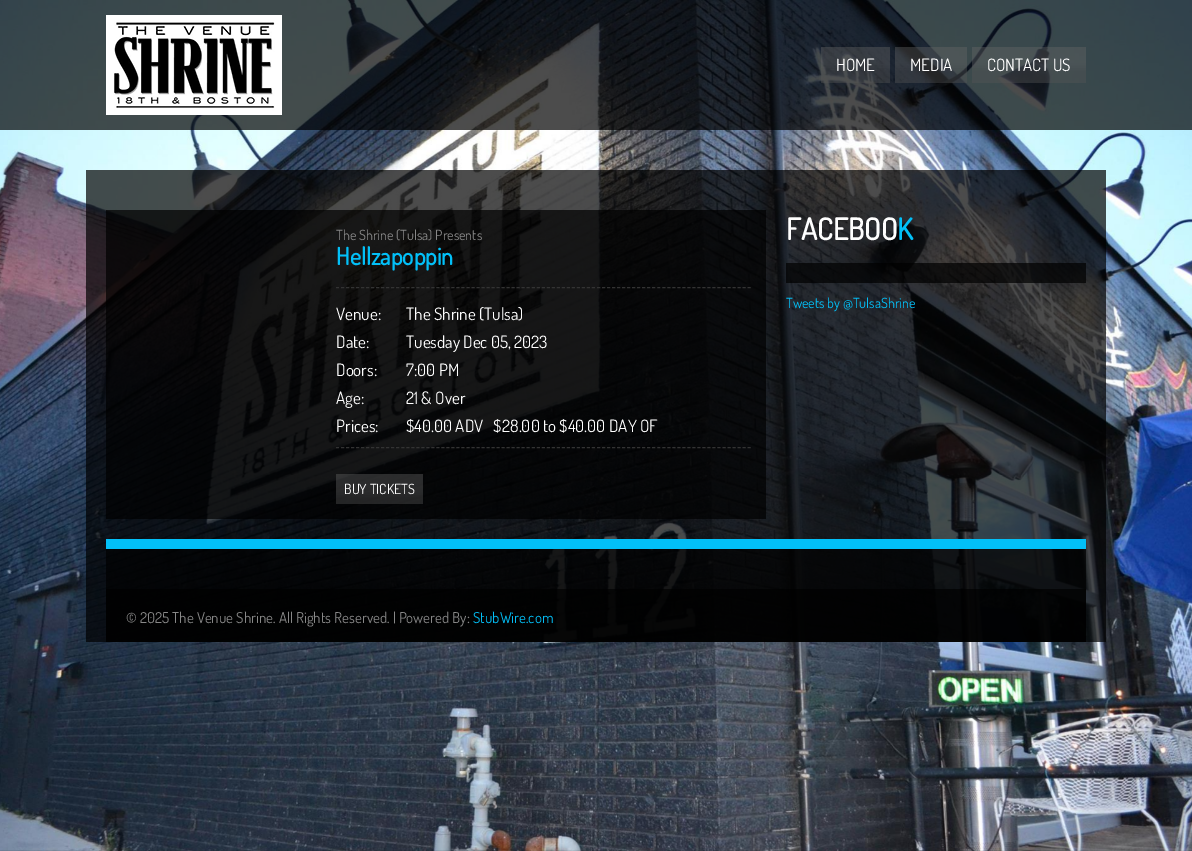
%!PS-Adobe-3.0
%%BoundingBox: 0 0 1192 851
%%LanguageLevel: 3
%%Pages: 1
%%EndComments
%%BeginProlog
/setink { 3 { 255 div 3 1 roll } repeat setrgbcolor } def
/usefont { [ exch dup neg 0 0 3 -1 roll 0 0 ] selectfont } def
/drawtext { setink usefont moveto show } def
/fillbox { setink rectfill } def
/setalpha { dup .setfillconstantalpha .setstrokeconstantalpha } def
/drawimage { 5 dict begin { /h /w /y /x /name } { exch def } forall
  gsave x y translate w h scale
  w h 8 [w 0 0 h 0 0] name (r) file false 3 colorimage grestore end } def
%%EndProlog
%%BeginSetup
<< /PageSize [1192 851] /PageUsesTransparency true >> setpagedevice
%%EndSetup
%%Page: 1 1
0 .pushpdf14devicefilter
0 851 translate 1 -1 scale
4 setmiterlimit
0 0 1192 851 255 255 255 fillbox
(assets/img1.rgb) 0 0 1192 851 drawimage
0.7 setalpha
0 0 1192 130 0 0 0 fillbox
1 setalpha
(assets/img2.rgb) 106 15 176 100 drawimage
(assets/img3.rgb) 821 47 69 36 drawimage
(HOME) 836 71 /Dosis-Regular 17 255 255 255 drawtext
(assets/img4.rgb) 895 47 72 36 drawimage
(MEDIA) 910 71 /Dosis-Regular 17 255 255 255 drawtext
(assets/img5.rgb) 972 47 114 36 drawimage
(CONTACT US) 987 71 /Dosis-Regular 17 255 255 255 drawtext
0.7 setalpha
86 170 1020 472 0 0 0 fillbox
106 210 660 309 0 0 0 fillbox
1 setalpha
(The Shrine \(Tulsa\) Presents) 336 240 /Dosis-Regular 14 136 136 136 drawtext
(Hellzapoppin) 336 265 /Dosis-Bold 24 2 192 248 drawtext
51 51 51 setink
[3 2.02] 0 setdash
336 287.5 moveto 751 287.5 lineto stroke
336 447.5 moveto 751 447.5 lineto stroke
(Venue:) 336 320 /Dosis-Regular 17 255 255 255 drawtext
(The Shrine \(Tulsa\)) 406 320 /Dosis-Regular 17 255 255 255 drawtext
(Date:) 336 348 /Dosis-Regular 17 255 255 255 drawtext
(Tuesday Dec 05, 2023) 406 348 /Dosis-Regular 17 255 255 255 drawtext
(Doors:) 336 376 /Dosis-Regular 17 255 255 255 drawtext
(7:00 PM) 406 376 /Dosis-Regular 17 255 255 255 drawtext
(Age:) 336 404 /Dosis-Regular 17 255 255 255 drawtext
(21 & Over) 406 404 /Dosis-Regular 17 255 255 255 drawtext
(Prices:) 336 432 /Dosis-Regular 17 255 255 255 drawtext
($40.00 ADV   $28.00 to $40.00 DAY OF) 406 432 /Dosis-Regular 17 255 255 255 drawtext
(assets/img6.rgb) 336 474 87 30 drawimage
(BUY TICKETS) 344 494 /Dosis-Regular 14 255 255 255 drawtext
(FACEBOO) 786 240 /Dosis-Bold 30 255 255 255 drawtext
(K) 897 240 /Dosis-Bold 30 2 192 248 drawtext
0.7 setalpha
786 263 300 20 0 0 0 fillbox
1 setalpha
(Tweets by @TulsaShrine) 786 308 /Dosis-Regular 14 2 192 248 drawtext
0.7 setalpha
106 549 980 40 0 0 0 fillbox
1 setalpha
106 539 980 10 2 192 248 fillbox
0.91 setalpha
106 589 980 53 0 0 0 fillbox
1 setalpha
(© 2025 The Venue Shrine. All Rights Reserved. | Powered By:) 126 623 /Dosis-Regular 15 136 136 136 drawtext
(StubWire.com) 473 623 /Dosis-Regular 15 2 192 248 drawtext
.poppdf14devicefilter showpage
%%EOF
